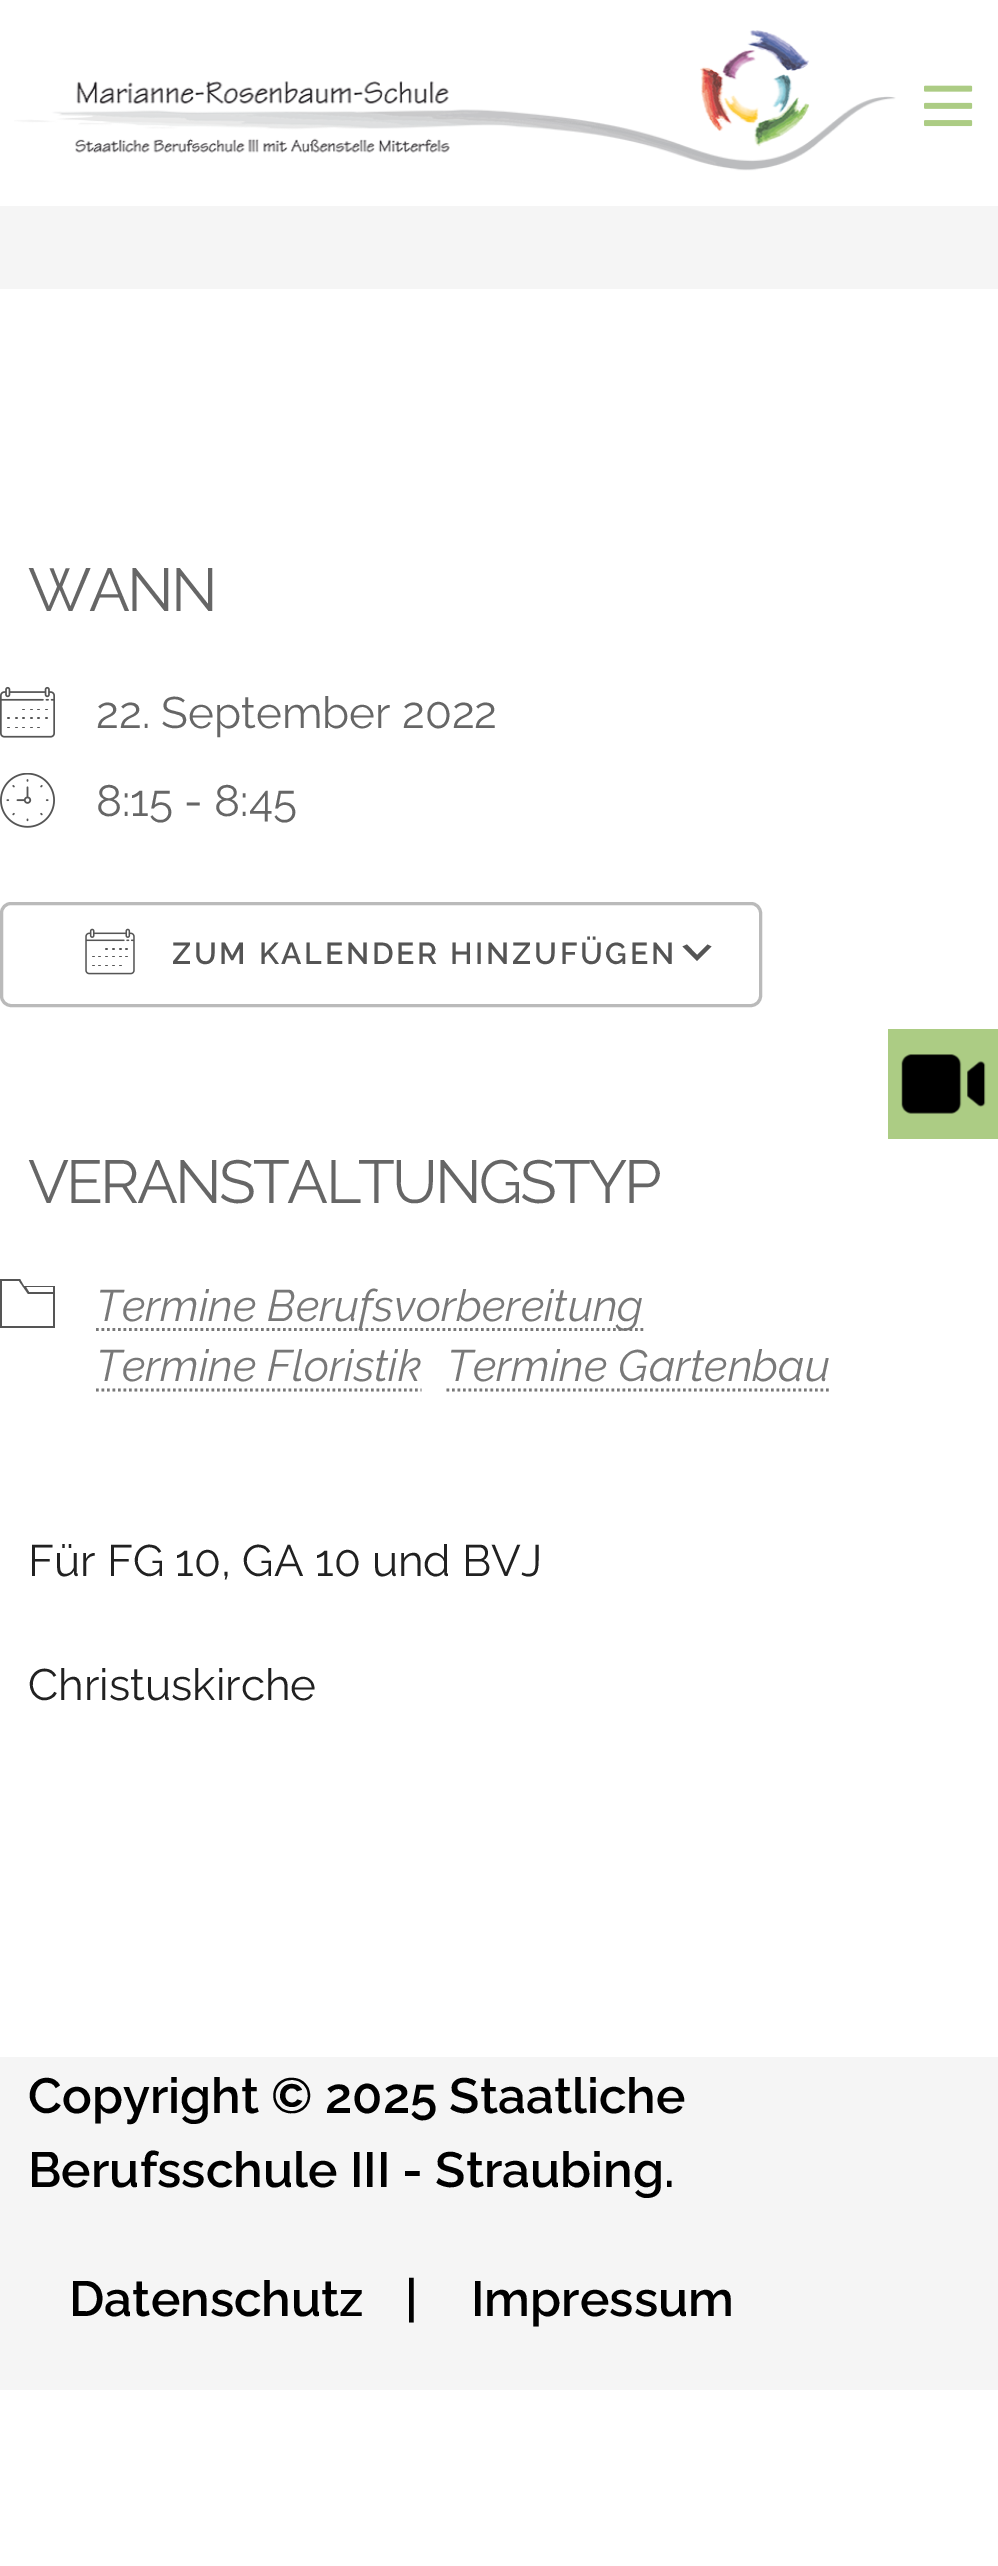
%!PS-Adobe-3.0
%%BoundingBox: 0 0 998 2566
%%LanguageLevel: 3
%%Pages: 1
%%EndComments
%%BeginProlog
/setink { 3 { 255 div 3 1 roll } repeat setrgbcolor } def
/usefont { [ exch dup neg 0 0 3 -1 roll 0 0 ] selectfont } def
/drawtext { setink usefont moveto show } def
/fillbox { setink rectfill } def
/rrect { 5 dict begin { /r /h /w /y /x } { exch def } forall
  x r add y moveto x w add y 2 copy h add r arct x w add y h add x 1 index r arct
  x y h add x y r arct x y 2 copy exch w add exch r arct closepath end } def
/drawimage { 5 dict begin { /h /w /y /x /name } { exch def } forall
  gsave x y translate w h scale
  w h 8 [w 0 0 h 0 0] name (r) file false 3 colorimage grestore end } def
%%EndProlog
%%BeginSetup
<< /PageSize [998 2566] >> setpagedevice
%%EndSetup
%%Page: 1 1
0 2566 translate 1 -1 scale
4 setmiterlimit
0 0 998 2566 255 255 255 fillbox
(assets/img1.rgb) 14 30 882 141 drawimage
(assets/img2.rgb) 924 85 49 42 drawimage
0 206 998 83 245 245 245 fillbox
/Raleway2-Thin 60.5 usefont
102 102 102 setink
28 611 moveto -2.75 0 (WANN) ashow
(assets/img3.rgb) 0 686 55 52 drawimage
(22. September 2022) 96 728 /Raleway2-Thin 44 102 102 102 drawtext
(assets/img4.rgb) 0 773 55 55 drawimage
(8:15 - 8:45) 96 816 /Raleway2-Thin 44 102 102 102 drawtext
85 85 85 setink
687 944.5 moveto 697 955 lineto 707.5 944.5 lineto 711.5 946.5 lineto 697 961 lineto 682.5 946.5 lineto closepath fill
186 186 186 setink
3 setlinewidth
1.5 903.5 759 102 9.5 rrect stroke
(assets/img5.rgb) 85 928 50 47 drawimage
/Raleway-Thin 30.25 usefont
84 84 84 setink
172 964 moveto 2.75 0 (ZUM KALENDER HINZUFÜGEN) ashow
/Raleway2-Thin 60.5 usefont
102 102 102 setink
28 1203 moveto -2.75 0 (VERANSTALTUNGSTYP) ashow
85 85 85 setink
24 1286 moveto 20 1279 lineto 0 1279 lineto 0 1328 lineto 55 1328 lineto 55 1286 lineto closepath 53 1287 moveto 53 1292 lineto 29 1292 lineto 26 1287 lineto closepath 2 1326 moveto 2 1281 lineto 19 1281 lineto 28 1294 lineto 53 1294 lineto 53 1326 lineto closepath fill
120 120 120 setink
2.8 setlinewidth
[2.75 2.75] 0 setdash
96 1329.5 moveto 643.5 1329.5 lineto stroke
(Termine Berufsvorbereitung) 96 1321 /Raleway-ThinItalic 44 120 120 120 drawtext
(Termine Floristik) 96 1381 /Raleway-ThinItalic 44 120 120 120 drawtext
96 1390 moveto 421.5 1390 lineto stroke
(Termine Gartenbau) 447 1381 /Raleway-ThinItalic 44 120 120 120 drawtext
446.5 1390 moveto 829.5 1390 lineto stroke
(Für FG 10, GA 10 und BVJ) 28 1576 /Raleway2-Thin 44 33 33 33 drawtext
(Christuskirche) 28 1700 /Raleway2-Thin 44 33 33 33 drawtext
888 1029 110 110 172 204 132 fillbox
(assets/img6.rgb) 901 1054 85 60 drawimage
0 2057 998 333 245 245 245 fillbox
(Copyright © 2025 Staatliche) 28 2113 /Raleway-Thin 49.5 0 0 0 drawtext
(Berufsschule III - Straubing.) 28 2187 /Raleway-Thin 49.5 0 0 0 drawtext
(Datenschutz) 69 2316 /Raleway-Thin 49.5 0 0 0 drawtext
(|) 405 2316 /Raleway-Thin 49.5 0 0 0 drawtext
(Impressum) 471 2316 /Raleway-Thin 49.5 0 0 0 drawtext
showpage
%%EOF
